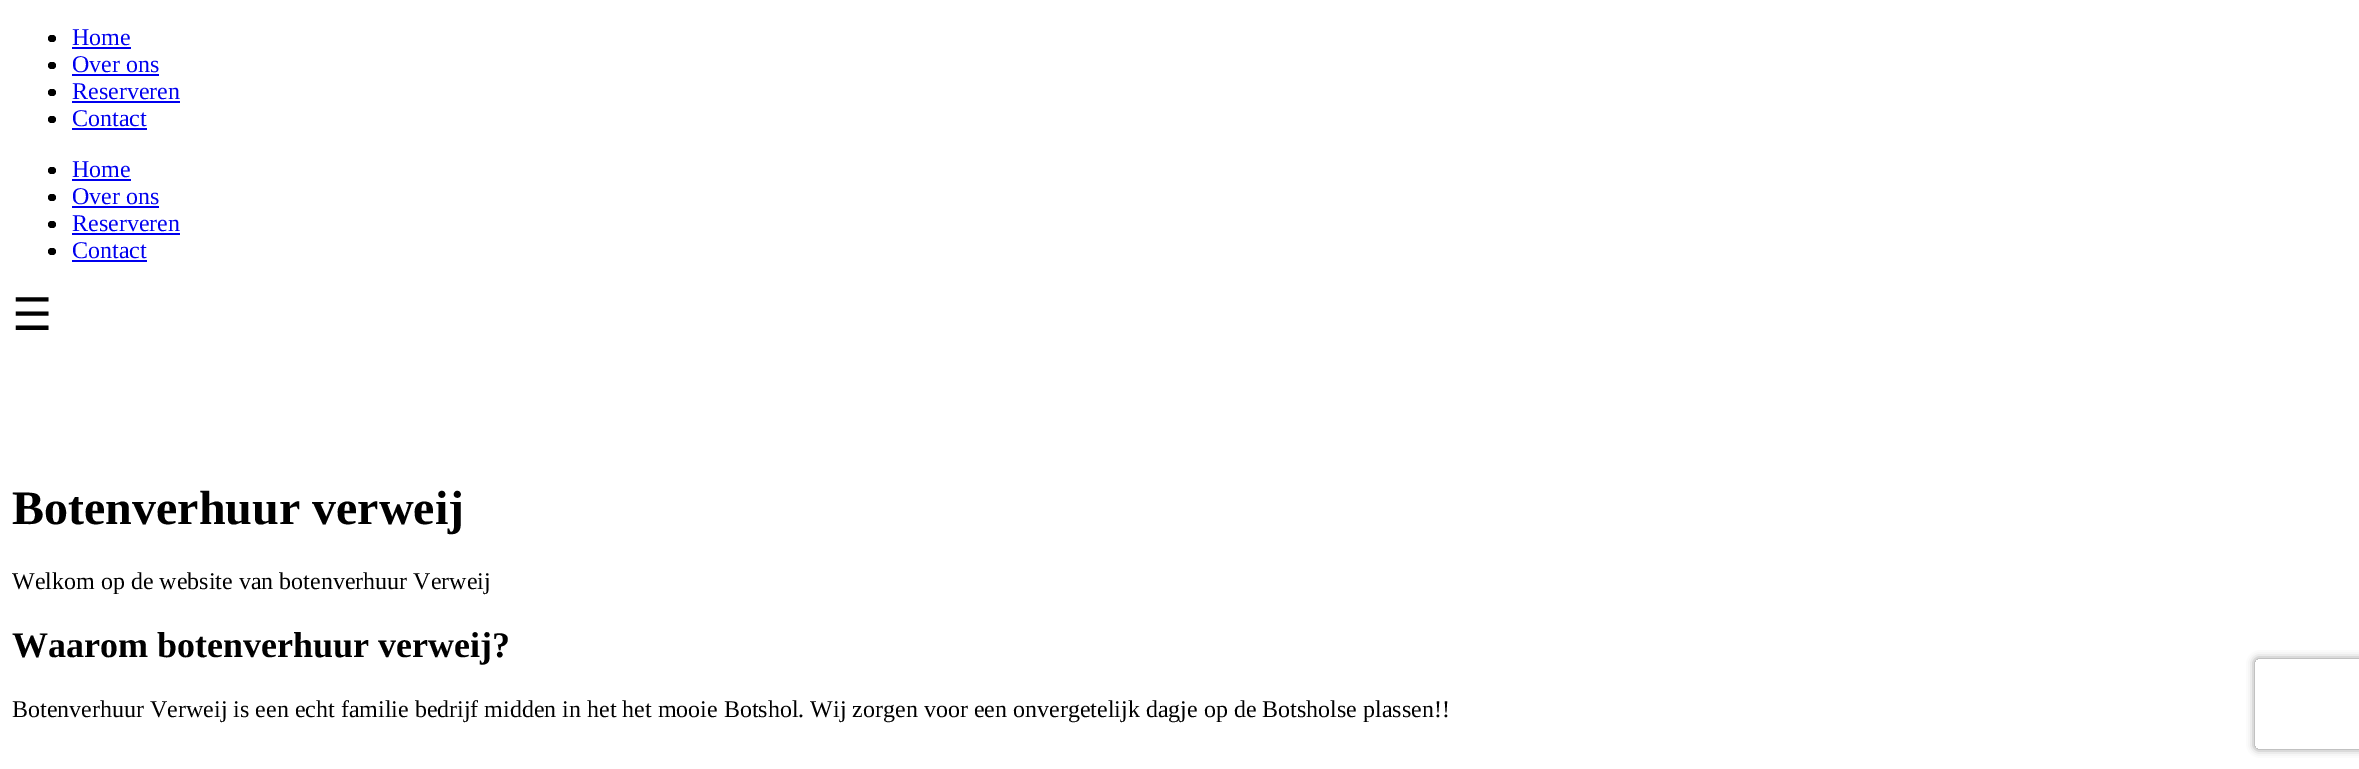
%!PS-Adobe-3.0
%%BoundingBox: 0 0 2359 769
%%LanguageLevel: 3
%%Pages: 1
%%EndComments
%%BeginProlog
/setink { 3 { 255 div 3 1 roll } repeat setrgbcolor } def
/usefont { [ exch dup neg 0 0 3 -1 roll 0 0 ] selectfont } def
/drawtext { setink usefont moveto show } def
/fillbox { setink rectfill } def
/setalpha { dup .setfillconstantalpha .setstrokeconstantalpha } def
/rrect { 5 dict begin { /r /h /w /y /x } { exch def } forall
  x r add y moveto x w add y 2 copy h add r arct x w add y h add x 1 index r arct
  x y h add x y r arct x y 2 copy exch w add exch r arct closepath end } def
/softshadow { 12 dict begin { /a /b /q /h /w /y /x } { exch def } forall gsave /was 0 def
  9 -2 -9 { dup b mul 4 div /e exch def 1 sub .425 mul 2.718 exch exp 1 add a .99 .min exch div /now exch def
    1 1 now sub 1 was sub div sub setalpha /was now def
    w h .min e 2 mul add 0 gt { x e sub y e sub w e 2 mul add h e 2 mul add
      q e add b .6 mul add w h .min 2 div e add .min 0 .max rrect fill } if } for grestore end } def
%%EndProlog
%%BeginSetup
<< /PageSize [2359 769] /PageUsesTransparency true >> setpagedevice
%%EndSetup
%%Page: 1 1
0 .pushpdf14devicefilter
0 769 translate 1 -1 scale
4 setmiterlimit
0 0 2359 769 255 255 255 fillbox
0 0 0 setink
48 35 8 7 3.5 rrect fill
(Home) 72 45 /LiberationSerif-Regular 24 0 0 238 drawtext
72 47 59 2 0 0 238 fillbox
0 0 0 setink
48 62 8 7 3.5 rrect fill
(Over ons) 72 72 /LiberationSerif-Regular 24 0 0 238 drawtext
72 74 87 2 0 0 238 fillbox
0 0 0 setink
48 89 8 7 3.5 rrect fill
(Reserveren) 72 99 /LiberationSerif-Regular 24 0 0 238 drawtext
72 101 108 2 0 0 238 fillbox
0 0 0 setink
48 116 8 7 3.5 rrect fill
(Contact) 72 126 /LiberationSerif-Regular 24 0 0 238 drawtext
72 128 75 2 0 0 238 fillbox
0 0 0 setink
48 167 8 7 3.5 rrect fill
(Home) 72 177 /LiberationSerif-Regular 24 0 0 238 drawtext
72 179 59 2 0 0 238 fillbox
0 0 0 setink
48 194 8 7 3.5 rrect fill
(Over ons) 72 204 /LiberationSerif-Regular 24 0 0 238 drawtext
72 206 87 2 0 0 238 fillbox
0 0 0 setink
48 221 8 7 3.5 rrect fill
(Reserveren) 72 231 /LiberationSerif-Regular 24 0 0 238 drawtext
72 233 108 2 0 0 238 fillbox
0 0 0 setink
48 248 8 7 3.5 rrect fill
(Contact) 72 258 /LiberationSerif-Regular 24 0 0 238 drawtext
72 260 75 2 0 0 238 fillbox
(☰) 12 330 /DejaVuSans-Regular 45 0 0 0 drawtext
(Botenverhuur verweij) 12 524 /LiberationSerif-Bold 48 0 0 0 drawtext
(Welkom op de website van botenverhuur Verweij) 12 589 /LiberationSerif-Regular 24 0 0 0 drawtext
(Waarom botenverhuur verweij?) 12 657 /LiberationSerif-Bold 36 0 0 0 drawtext
(Botenverhuur Verweij is een echt familie bedrijf midden in het het mooie Botshol. Wij zorgen voor een onvergetelijk dagje op de Botsholse plassen!!) 12 717 /LiberationSerif-Regular 24 0 0 0 drawtext
gsave
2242 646 moveto 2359 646 lineto 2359 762 lineto 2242 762 lineto closepath 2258 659 moveto 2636 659 lineto 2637.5 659 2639 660.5 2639 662 curveto 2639 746 lineto 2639 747.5 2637.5 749 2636 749 curveto 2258 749 lineto 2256.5 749 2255 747.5 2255 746 curveto 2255 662 lineto 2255 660.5 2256.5 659 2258 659 curveto closepath eoclip newpath
128 128 128 setink
2255 659 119 90 3 4 1 softshadow
grestore
.poppdf14devicefilter showpage
%%EOF
